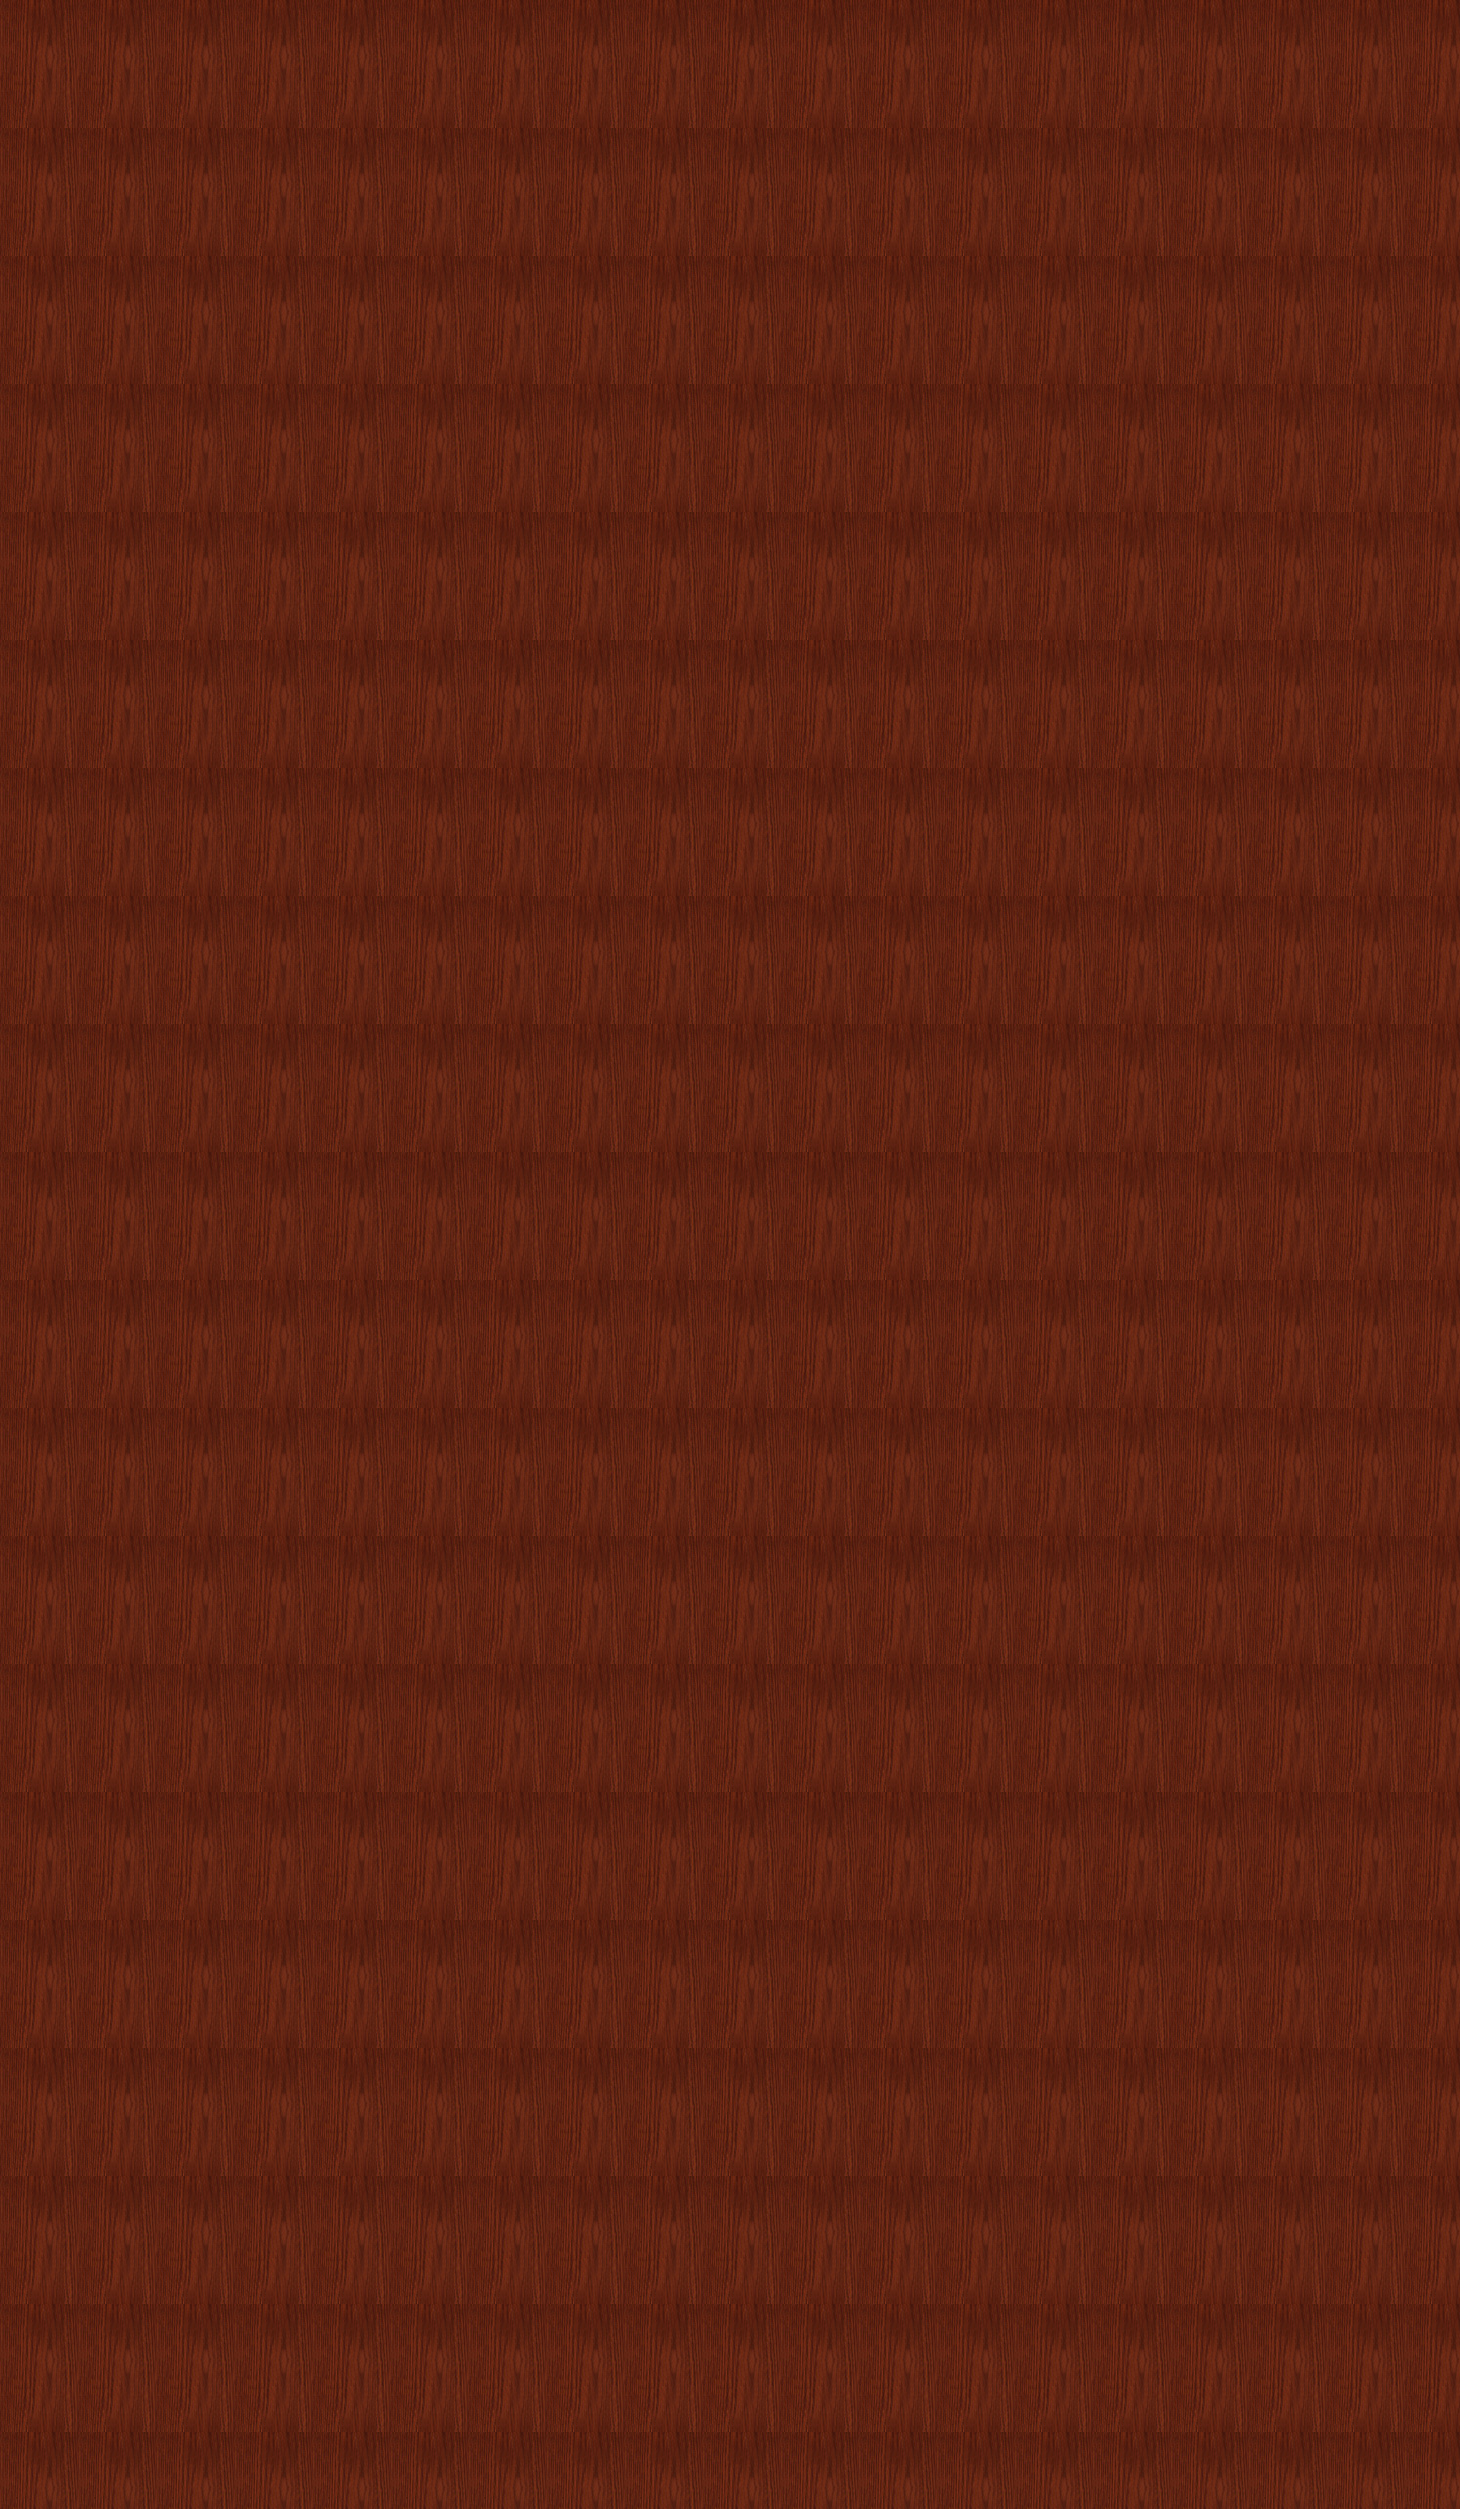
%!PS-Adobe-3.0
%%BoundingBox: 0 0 1460 2509
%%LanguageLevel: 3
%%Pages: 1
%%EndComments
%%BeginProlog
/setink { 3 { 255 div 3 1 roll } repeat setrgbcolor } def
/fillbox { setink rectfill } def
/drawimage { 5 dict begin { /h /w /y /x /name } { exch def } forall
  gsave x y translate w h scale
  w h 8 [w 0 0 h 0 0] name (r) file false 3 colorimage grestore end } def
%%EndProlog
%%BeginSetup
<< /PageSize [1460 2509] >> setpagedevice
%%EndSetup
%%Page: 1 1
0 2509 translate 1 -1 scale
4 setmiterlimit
0 0 1460 2509 255 255 255 fillbox
(assets/img1.rgb) 0 0 1460 2509 drawimage
showpage
%%EOF
